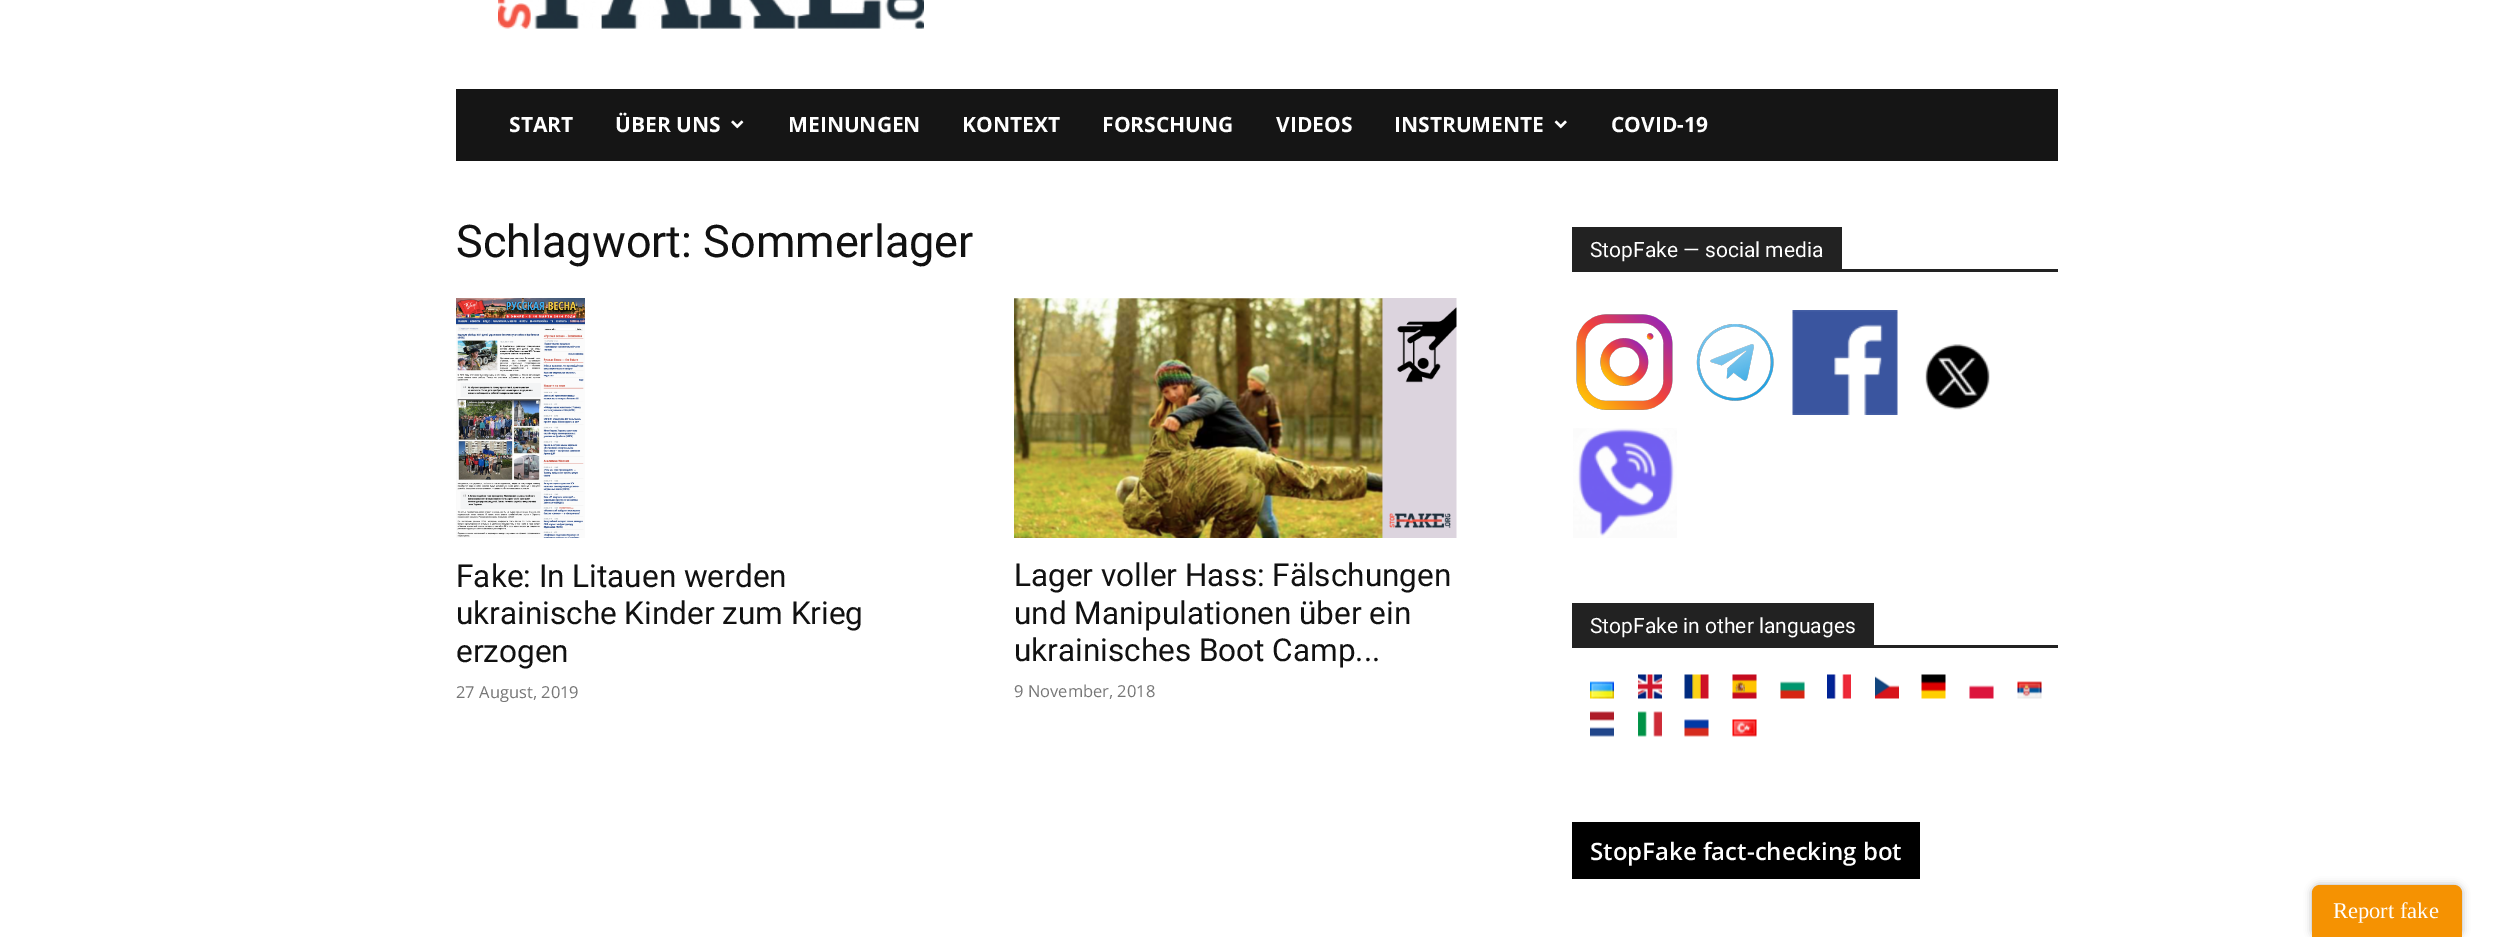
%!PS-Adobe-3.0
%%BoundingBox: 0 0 2514 937
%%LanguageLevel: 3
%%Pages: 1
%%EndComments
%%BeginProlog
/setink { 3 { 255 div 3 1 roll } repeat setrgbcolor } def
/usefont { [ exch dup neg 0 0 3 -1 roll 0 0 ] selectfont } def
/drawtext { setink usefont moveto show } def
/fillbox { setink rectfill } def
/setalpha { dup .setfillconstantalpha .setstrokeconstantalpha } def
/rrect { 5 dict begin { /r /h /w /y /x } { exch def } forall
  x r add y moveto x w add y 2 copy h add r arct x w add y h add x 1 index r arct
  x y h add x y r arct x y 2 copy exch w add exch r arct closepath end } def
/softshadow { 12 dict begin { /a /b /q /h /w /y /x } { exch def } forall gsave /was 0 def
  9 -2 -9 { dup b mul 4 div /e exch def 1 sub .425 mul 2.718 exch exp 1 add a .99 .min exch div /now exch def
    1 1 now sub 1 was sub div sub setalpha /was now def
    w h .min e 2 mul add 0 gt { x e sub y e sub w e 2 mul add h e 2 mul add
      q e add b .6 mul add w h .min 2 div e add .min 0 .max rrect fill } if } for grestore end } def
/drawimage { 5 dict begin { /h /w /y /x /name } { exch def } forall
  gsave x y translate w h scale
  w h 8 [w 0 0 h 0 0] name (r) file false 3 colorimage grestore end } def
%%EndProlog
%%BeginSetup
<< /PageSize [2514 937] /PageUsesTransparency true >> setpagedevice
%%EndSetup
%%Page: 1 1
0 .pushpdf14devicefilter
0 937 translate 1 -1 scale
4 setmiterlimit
0 0 2514 937 255 255 255 fillbox
(assets/img1.rgb) 498 0 426 29 drawimage
456 89 1602 72 21 21 21 fillbox
(START) 509 132 /OpenSans-Bold 21 255 255 255 drawtext
(ÜBER UNS) 615 132 /OpenSans-Bold 21 255 255 255 drawtext
(assets/img2.rgb) 731 120 13 9 drawimage
(MEINUNGEN) 788 132 /OpenSans-Bold 21 255 255 255 drawtext
(KONTEXT) 962 132 /OpenSans-Bold 21 255 255 255 drawtext
(FORSCHUNG) 1102 132 /OpenSans-Bold 21 255 255 255 drawtext
(VIDEOS) 1276 132 /OpenSans-Bold 21 255 255 255 drawtext
(INSTRUMENTE) 1394 132 /OpenSans-Bold 21 255 255 255 drawtext
(assets/img3.rgb) 1554 120 13 9 drawimage
(COVID-19) 1611 132 /OpenSans-Bold 21 255 255 255 drawtext
(Schlagwort: Sommerlager) 456 257 /Roboto-Regular 45 17 17 17 drawtext
(assets/img4.rgb) 456 298 129 240 drawimage
(Fake: In Litauen werden) 456 587 /Roboto-Regular 31.5 17 17 17 drawtext
(ukrainische Kinder zum Krieg) 456 624 /Roboto-Regular 31.5 17 17 17 drawtext
(erzogen) 456 662 /Roboto-Regular 31.5 17 17 17 drawtext
(27 August, 2019) 456 698 /OpenSans-Regular 16.5 118 118 118 drawtext
(assets/img5.rgb) 1014 298 443 240 drawimage
(Lager voller Hass: Fälschungen) 1014 586 /Roboto-Regular 31.5 17 17 17 drawtext
(und Manipulationen über ein) 1014 624 /Roboto-Regular 31.5 17 17 17 drawtext
(ukrainisches Boot Camp...) 1014 661 /Roboto-Regular 31.5 17 17 17 drawtext
(9 November, 2018) 1014 697 /OpenSans-Regular 16.5 118 118 118 drawtext
1572 269 486 3 34 34 34 fillbox
1572 227 270 42 34 34 34 fillbox
(StopFake — social media) 1590 257 /Roboto-Regular 21 255 255 255 drawtext
(assets/img6.rgb) 1576 314 97 96 drawimage
(assets/img7.rgb) 1696 324 78 77 drawimage
(assets/img8.rgb) 1792 310 106 105 drawimage
(assets/img9.rgb) 1925 344 65 66 drawimage
(assets/img10.rgb) 1573 428 104 110 drawimage
1572 645 486 3 34 34 34 fillbox
1572 603 302 42 34 34 34 fillbox
(StopFake in other languages) 1590 633 /Roboto-Regular 21 255 255 255 drawtext
(assets/img11.rgb) 1590 681 24 18 drawimage
(assets/img12.rgb) 1638 674 24 25 drawimage
(assets/img13.rgb) 1684 674 25 25 drawimage
(assets/img14.rgb) 1732 674 25 25 drawimage
(assets/img15.rgb) 1780 681 25 18 drawimage
(assets/img16.rgb) 1827 674 24 25 drawimage
(assets/img17.rgb) 1875 676 24 23 drawimage
(assets/img18.rgb) 1921 674 25 25 drawimage
(assets/img19.rgb) 1969 685 25 14 drawimage
(assets/img20.rgb) 2017 681 25 18 drawimage
(assets/img21.rgb) 1590 711 24 26 drawimage
(assets/img22.rgb) 1638 711 24 26 drawimage
(assets/img23.rgb) 1684 719 25 18 drawimage
(assets/img24.rgb) 1732 719 25 18 drawimage
1572 822 348 57 0 0 0 fillbox
(StopFake fact-checking bot) 1590 860 /OpenSans-SemiBold 24 255 255 255 drawtext
0 0 0 setink
2312 885 150 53 8 4 0.3 softshadow
245 146 2 setink
2320 885 moveto 2454 885 lineto 2458.5 885 2462 888.5 2462 893 curveto 2462 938 lineto 2312 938 lineto 2312 893 lineto 2312 888.5 2315.5 885 2320 885 curveto closepath fill
(Report fake) 2333 918 /LiberationSerif-Regular 22.5 255 255 255 drawtext
.poppdf14devicefilter showpage
%%EOF
